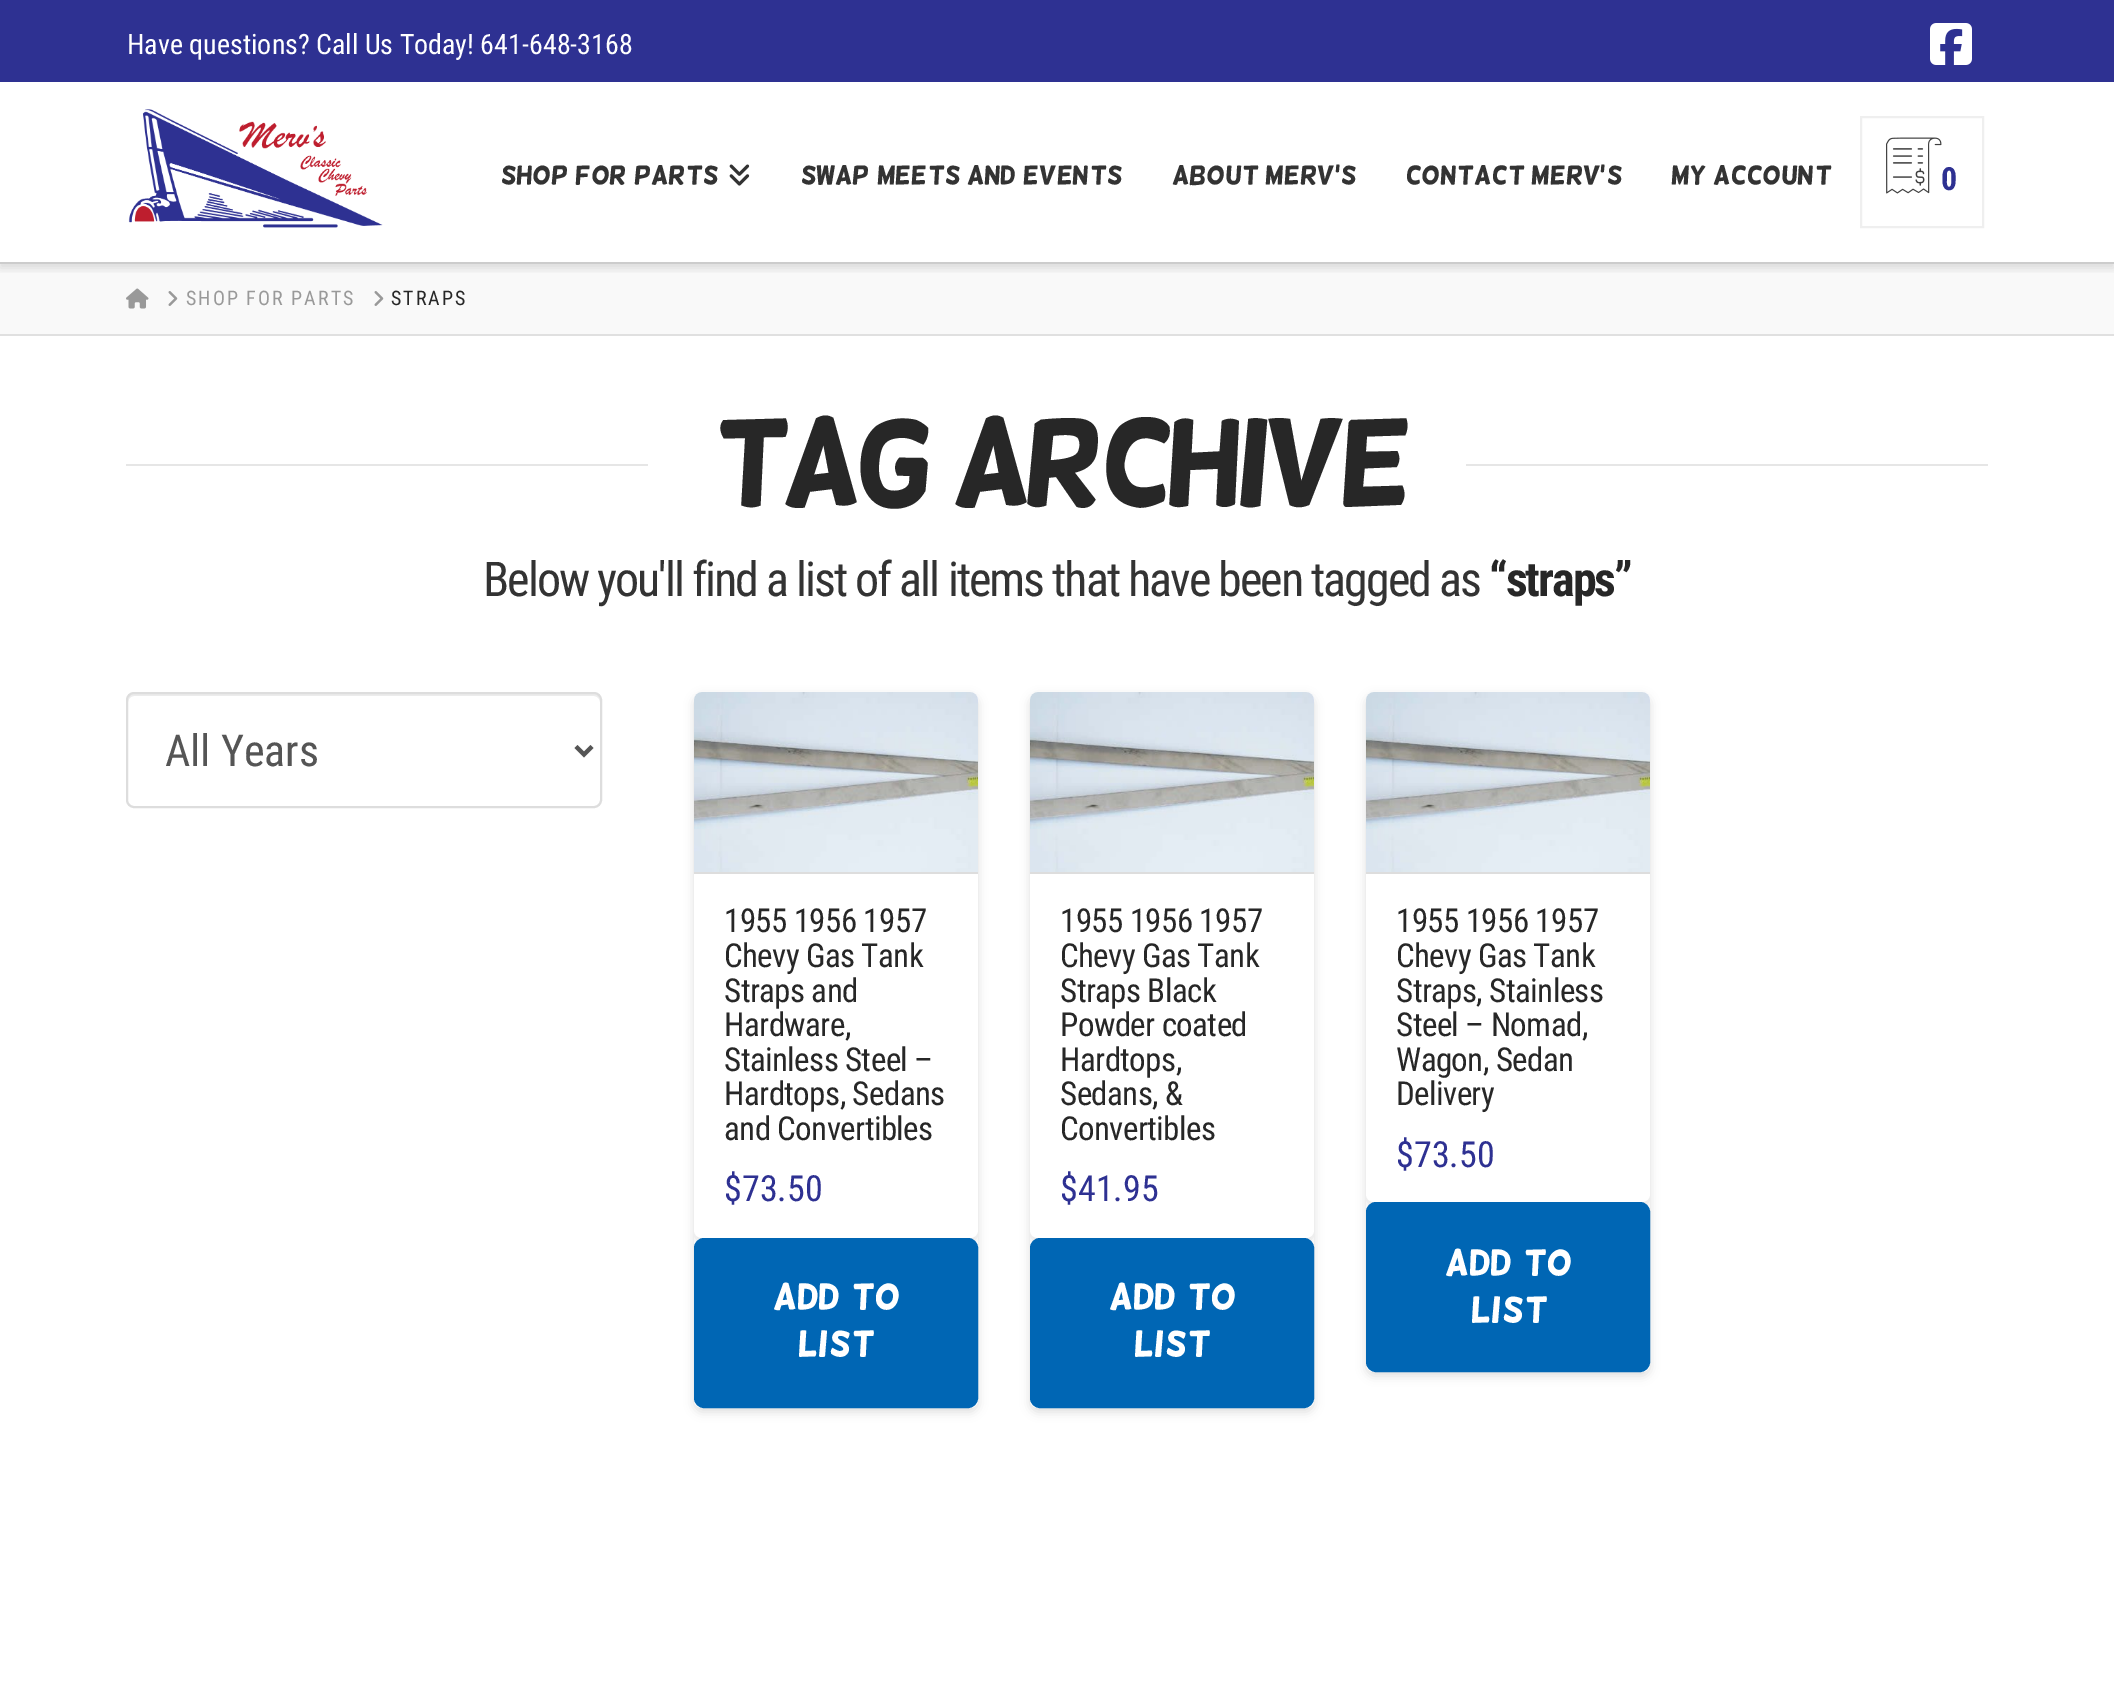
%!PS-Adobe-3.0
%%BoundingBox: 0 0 2114 1682
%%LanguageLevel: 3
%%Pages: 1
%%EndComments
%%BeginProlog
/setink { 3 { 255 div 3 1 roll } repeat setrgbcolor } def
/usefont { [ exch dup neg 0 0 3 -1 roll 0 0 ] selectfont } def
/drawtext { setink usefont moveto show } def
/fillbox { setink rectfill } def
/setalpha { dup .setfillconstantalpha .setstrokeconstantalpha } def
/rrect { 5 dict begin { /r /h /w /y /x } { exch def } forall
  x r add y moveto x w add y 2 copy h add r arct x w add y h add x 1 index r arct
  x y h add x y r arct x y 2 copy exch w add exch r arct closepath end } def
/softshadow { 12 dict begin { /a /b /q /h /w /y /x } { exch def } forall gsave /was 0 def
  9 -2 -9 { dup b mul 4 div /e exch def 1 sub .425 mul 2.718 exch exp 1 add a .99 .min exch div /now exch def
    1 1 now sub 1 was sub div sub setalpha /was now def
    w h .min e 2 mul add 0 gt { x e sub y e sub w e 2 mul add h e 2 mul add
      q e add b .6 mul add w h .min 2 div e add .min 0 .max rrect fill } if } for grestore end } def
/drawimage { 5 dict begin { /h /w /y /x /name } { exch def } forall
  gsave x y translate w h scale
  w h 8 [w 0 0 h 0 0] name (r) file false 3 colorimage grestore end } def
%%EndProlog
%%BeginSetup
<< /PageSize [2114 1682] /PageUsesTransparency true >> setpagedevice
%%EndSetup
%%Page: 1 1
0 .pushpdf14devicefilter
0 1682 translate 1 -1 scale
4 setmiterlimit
0 0 2114 1682 255 255 255 fillbox
0 264 2114 70 249 249 249 fillbox
gsave
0 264 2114 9 rectclip
0 0 0 setink
0 86 2114 182 0 5 0.13 softshadow
grestore
0 0 2114 82 46 49 146 fillbox
(Have questions? Call Us Today! 641-648-3168) 127 54 /RobotoCondensed-Regular 28 255 255 255 drawtext
(assets/img1.rgb) 1930 23 42 42 drawimage
0 262 2114 2 204 204 204 fillbox
(assets/img2.rgb) 128 109 255 119 drawimage
(SHOP FOR PARTS) 500 184 /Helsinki-Regular 26 51 51 51 drawtext
(assets/img3.rgb) 729 164 21 22 drawimage
(SWAP MEETS AND EVENTS) 800 184 /Helsinki-Regular 26 51 51 51 drawtext
(ABOUT MERV’S) 1172 184 /Helsinki-Regular 26 51 51 51 drawtext
(CONTACT MERV’S) 1405 184 /Helsinki-Regular 26 51 51 51 drawtext
(MY ACCOUNT) 1671 184 /Helsinki-Regular 26 51 51 51 drawtext
239 239 239 setink
2 setlinewidth
1861 117 122 110 rectstroke
(assets/img4.rgb) 1886 137 56 57 drawimage
(0) 1941 190 /RobotoCondensed-Bold 32 46 49 146 drawtext
0 334 2114 2 224 224 224 fillbox
(assets/img5.rgb) 126 288 23 21 drawimage
(assets/img6.rgb) 168 291 10 15 drawimage
/RobotoCondensed-Regular 20 usefont
153 153 153 setink
186 305 moveto 2 0 (SHOP FOR PARTS) ashow
(assets/img6.rgb) 374 291 10 15 drawimage
39 39 39 setink
391 305 moveto 2 0 (STRAPS) ashow
126 464 522 2 230 230 230 fillbox
/Helsinki-Regular 120 usefont
39 39 39 setink
708 504 moveto -6 0 (Tag Archive) ashow
1466 464 522 2 230 230 230 fillbox
/RobotoCondensed-Regular 48 usefont
51 51 51 setink
483 596 moveto -2 0 (Below you'll find a list of all items that have been tagged as) ashow
/RobotoCondensed-Bold 48 usefont
39 39 39 setink
1489 596 moveto -2 0 (“straps”) ashow
236 236 236 setink
134 696 moveto 594 696 lineto 597 696 600 699 600 702 curveto 600 698 599 694 594 694 curveto 134 694 lineto 129 694 128 698 128 702 curveto 128 699 131 696 134 696 curveto closepath fill
221 221 221 setink
127 693 474 114 7 rrect stroke
85 85 85 setink
4 setlinewidth
576 746.5 moveto 584 754.5 lineto 592 746.5 lineto stroke
(All Years) 165 766 /RobotoCondensed-Regular 44 85 85 85 drawtext
0 0 0 setink
694 696 284 716 8 5 0.13 softshadow
255 255 255 setink
694 692 284 716 8 rrect fill
gsave
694 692 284 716 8 rrect clip newpath
0 0 0 setink
694 878 284 364 8 5 0.13 softshadow
grestore
694 872 284 2 221 221 221 fillbox
(assets/img7.rgb) 694 692 284 180 drawimage
255 255 255 setink
694 874 moveto 978 874 lineto 978 1230 lineto 978 1234.5 974.5 1238 970 1238 curveto 702 1238 lineto 697.5 1238 694 1234.5 694 1230 curveto closepath fill
/RobotoCondensed-Regular 33 usefont
39 39 39 setink
724 932 moveto -0.6 0 (1955 1956 1957) ashow
724 967 moveto -0.6 0 (Chevy Gas Tank) ashow
724 1002 moveto -0.6 0 (Straps and) ashow
724 1036 moveto -0.6 0 (Hardware,) ashow
724 1071 moveto -0.6 0 (Stainless Steel –) ashow
724 1105 moveto -0.6 0 (Hardtops, Sedans) ashow
724 1140 moveto -0.6 0 (and Convertibles) ashow
($73.50) 724 1201 /RobotoCondensed-Regular 36 46 49 146 drawtext
0 102 180 setink
695 1239 282 168 9 rrect gsave fill grestore
2 setlinewidth
stroke
(Add to) 773 1309 /Helsinki-Regular 36 255 255 255 drawtext
(List) 798 1356 /Helsinki-Regular 36 255 255 255 drawtext
0 0 0 setink
1030 696 284 716 8 5 0.13 softshadow
255 255 255 setink
1030 692 284 716 8 rrect fill
gsave
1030 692 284 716 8 rrect clip newpath
0 0 0 setink
1030 878 284 364 8 5 0.13 softshadow
grestore
1030 872 284 2 221 221 221 fillbox
(assets/img8.rgb) 1030 692 284 180 drawimage
255 255 255 setink
1030 874 moveto 1314 874 lineto 1314 1230 lineto 1314 1234.5 1310.5 1238 1306 1238 curveto 1038 1238 lineto 1033.5 1238 1030 1234.5 1030 1230 curveto closepath fill
/RobotoCondensed-Regular 33 usefont
39 39 39 setink
1060 932 moveto -0.6 0 (1955 1956 1957) ashow
1060 967 moveto -0.6 0 (Chevy Gas Tank) ashow
1060 1002 moveto -0.6 0 (Straps Black) ashow
1060 1036 moveto -0.6 0 (Powder coated) ashow
1060 1071 moveto -0.6 0 (Hardtops,) ashow
1060 1105 moveto -0.6 0 (Sedans, &) ashow
1060 1140 moveto -0.6 0 (Convertibles) ashow
($41.95) 1060 1201 /RobotoCondensed-Regular 36 46 49 146 drawtext
0 102 180 setink
1031 1239 282 168 9 rrect gsave fill grestore
stroke
(Add to) 1109 1309 /Helsinki-Regular 36 255 255 255 drawtext
(List) 1134 1356 /Helsinki-Regular 36 255 255 255 drawtext
0 0 0 setink
1366 696 284 680 8 5 0.13 softshadow
255 255 255 setink
1366 692 284 680 8 rrect fill
gsave
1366 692 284 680 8 rrect clip newpath
0 0 0 setink
1366 878 284 328 8 5 0.13 softshadow
grestore
1366 872 284 2 221 221 221 fillbox
(assets/img7.rgb) 1366 692 284 180 drawimage
255 255 255 setink
1366 874 moveto 1650 874 lineto 1650 1194 lineto 1650 1198.5 1646.5 1202 1642 1202 curveto 1374 1202 lineto 1369.5 1202 1366 1198.5 1366 1194 curveto closepath fill
/RobotoCondensed-Regular 33 usefont
39 39 39 setink
1396 932 moveto -0.6 0 (1955 1956 1957) ashow
1396 967 moveto -0.6 0 (Chevy Gas Tank) ashow
1396 1002 moveto -0.6 0 (Straps, Stainless) ashow
1396 1036 moveto -0.6 0 (Steel – Nomad,) ashow
1396 1071 moveto -0.6 0 (Wagon, Sedan) ashow
1396 1105 moveto -0.6 0 (Delivery) ashow
($73.50) 1396 1167 /RobotoCondensed-Regular 36 46 49 146 drawtext
0 102 180 setink
1367 1203 282 168 9 rrect gsave fill grestore
stroke
(Add to) 1445 1275 /Helsinki-Regular 36 255 255 255 drawtext
(List) 1471 1322 /Helsinki-Regular 36 255 255 255 drawtext
.poppdf14devicefilter showpage
%%EOF
